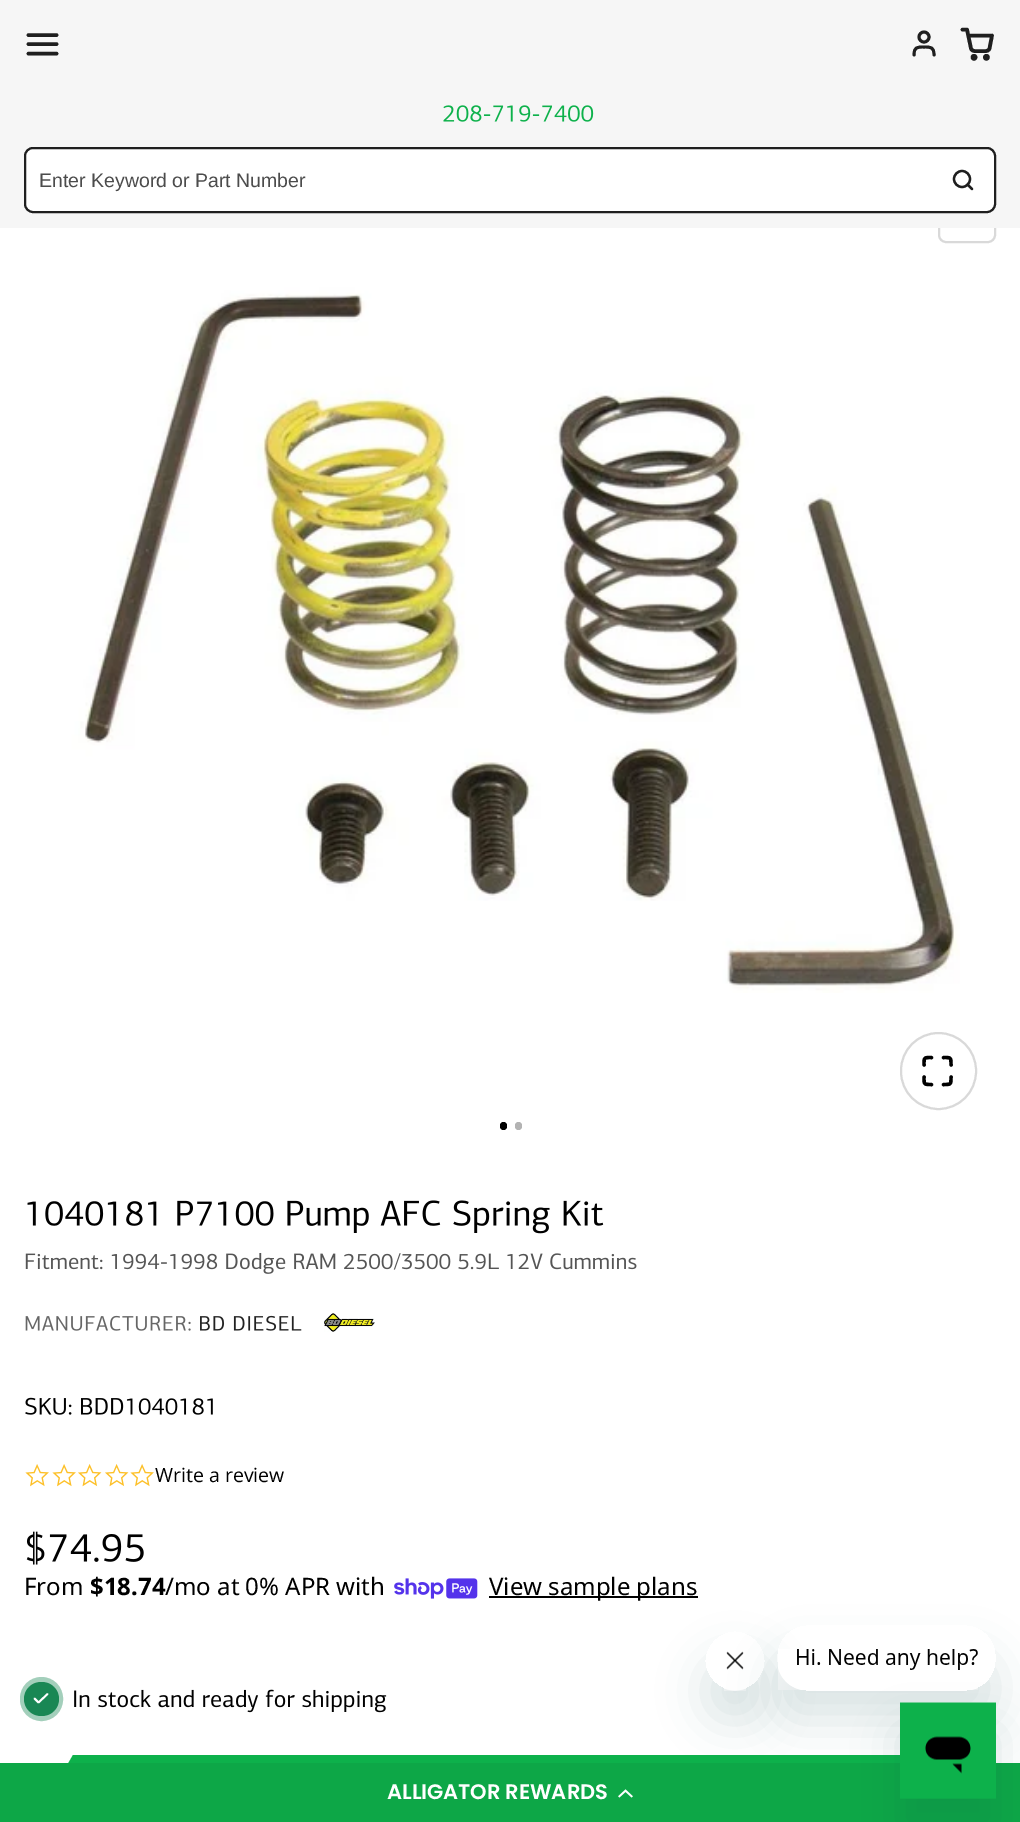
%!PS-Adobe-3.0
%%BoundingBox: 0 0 1020 1822
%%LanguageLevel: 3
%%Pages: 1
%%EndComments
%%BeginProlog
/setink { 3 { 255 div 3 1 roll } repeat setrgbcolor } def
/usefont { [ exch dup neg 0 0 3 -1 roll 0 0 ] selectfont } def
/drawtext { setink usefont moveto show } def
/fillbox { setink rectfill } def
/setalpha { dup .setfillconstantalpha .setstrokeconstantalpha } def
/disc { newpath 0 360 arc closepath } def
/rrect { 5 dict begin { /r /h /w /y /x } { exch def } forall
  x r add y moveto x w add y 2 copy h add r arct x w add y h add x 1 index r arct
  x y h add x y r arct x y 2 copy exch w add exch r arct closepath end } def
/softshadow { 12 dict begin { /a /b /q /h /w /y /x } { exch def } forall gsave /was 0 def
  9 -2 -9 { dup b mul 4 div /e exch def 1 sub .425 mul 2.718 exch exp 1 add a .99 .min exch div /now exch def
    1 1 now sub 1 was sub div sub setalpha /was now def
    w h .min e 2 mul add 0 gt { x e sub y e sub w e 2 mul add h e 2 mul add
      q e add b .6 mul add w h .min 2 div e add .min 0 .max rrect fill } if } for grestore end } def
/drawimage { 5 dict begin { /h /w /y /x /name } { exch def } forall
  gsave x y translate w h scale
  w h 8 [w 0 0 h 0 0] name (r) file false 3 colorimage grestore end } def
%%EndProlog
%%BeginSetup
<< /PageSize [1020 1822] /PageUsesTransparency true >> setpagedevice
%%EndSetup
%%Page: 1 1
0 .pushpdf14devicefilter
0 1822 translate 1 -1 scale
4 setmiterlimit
0 0 1020 1822 255 255 255 fillbox
(assets/img2.rgb) 51 228 909 765 drawimage
217 217 217 setink
2 setlinewidth
939 186 56 56 7 rrect stroke
0 0 1020 228 246 246 246 fillbox
31 31 31 setink
3.6 setlinewidth
1 setlinecap
1 setlinejoin
28.5 44 moveto 56.5 44 lineto 28.5 35 moveto 56.5 35 lineto 28.5 53.5 moveto 56.5 53.5 lineto stroke
2.9 setlinewidth
934 55 moveto 934 47 931 47 924 47 curveto 917 47 914 47 914 55 curveto stroke
0 setlinecap
0 setlinejoin
924 37 5 disc stroke
3.6 setlinewidth
974 57.3 1.5 disc stroke
986.4 57.3 1.5 disc stroke
1 setlinecap
1 setlinejoin
962.5 29.5 moveto 967 29.5 lineto 971 48.5 lineto 971.5 50 973 51 974.5 51 curveto 986 51 lineto 987.5 51 989 50 989.5 48.5 curveto 992 35.5 lineto 969.5 35.5 lineto stroke
(assets/img1.rgb) 443 105 151 17 drawimage
255 255 255 setink
25 148 970 64 8 rrect gsave fill grestore
31 31 31 setink
2 setlinewidth
0 setlinecap
0 setlinejoin
stroke
(Enter Keyword or Part Number) 39 187 /LiberationSans-Regular 19.5 76 76 76 drawtext
31 31 31 setink
2.3 setlinewidth
962 179 8 disc stroke
1 setlinecap
1 setlinejoin
972 189 moveto 967.5 184.5 lineto stroke
0 0 0 setink
500 1122 7 8 3.5 rrect fill
179 179 179 setink
515 1122 7 8 3.5 rrect fill
217 217 217 setink
2 setlinewidth
0 setlinecap
0 setlinejoin
901 1033 75 76 37.5 rrect stroke
0 0 0 setink
3.4 setlinewidth
1 setlinecap
1 setlinejoin
931.5 1057.5 moveto 924 1057.5 924 1057.5 924 1065 curveto 951 1065 moveto 951 1057.5 951 1057.5 943.5 1057.5 curveto 943.5 1084.5 moveto 951 1084.5 951 1084.5 951 1077 curveto 924 1077 moveto 924 1084.5 924 1084.5 931.5 1084.5 curveto stroke
(assets/img3.rgb) 27 1200 577 34 drawimage
(assets/img4.rgb) 25 1253 78 17 drawimage
(assets/img5.rgb) 111 1253 526 21 drawimage
(assets/img6.rgb) 25 1315 166 16 drawimage
(assets/img7.rgb) 200 1315 102 16 drawimage
(assets/img8.rgb) 324 1313 51 19 drawimage
(assets/img9.rgb) 25 1397 188 18 drawimage
(assets/img10.rgb) 25 1464 24 23 drawimage
(assets/img10.rgb) 52 1464 24 23 drawimage
(assets/img11.rgb) 78 1464 24 23 drawimage
(assets/img11.rgb) 105 1464 24 23 drawimage
(assets/img10.rgb) 130 1464 24 23 drawimage
(Write a review) 155 1482 /OpenSans-Regular 19.5 0 0 0 drawtext
(assets/img12.rgb) 26 1531 118 34 drawimage
(From) 24 1595 /NotoSans-Regular 24 0 0 0 drawtext
($18.74) 90 1595 /NotoSans-Bold 24 0 0 0 drawtext
(/mo at 0% APR with) 165 1595 /NotoSans-Regular 24 0 0 0 drawtext
(assets/img13.rgb) 394 1578 84 21 drawimage
489 1596 209 2 0 0 0 fillbox
(View sample plans) 489 1595 /NotoSans-Regular 24 0 0 0 drawtext
163 207 187 setink
5 setlinewidth
0 setlinecap
0 setlinejoin
22.5 1679.5 38 39 19 rrect stroke
25 135 84 setink
24 1682 35 34 17 rrect fill
255 255 255 setink
1.8 setlinewidth
1 setlinecap
1 setlinejoin
47.5 1694 moveto 38.5 1702.5 lineto 34.5 1698.5 lineto stroke
(assets/img14.rgb) 74 1689 313 24 drawimage
13 177 75 setink
73 1755 moveto 990 1755 lineto 991 1756 993 1757 994 1759 curveto 947 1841 lineto 30 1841 lineto 28 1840 27 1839 26 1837 curveto closepath fill
0 1763 1020 59 13 167 71 fillbox
(ALLIGATOR REWARDS) 387 1799 /Poppins-SemiBold 21 255 255 255 drawtext
(assets/img15.rgb) 618 1789 15 9 drawimage
gsave
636 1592 moveto 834 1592 lineto 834 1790 lineto 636 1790 lineto closepath 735 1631 moveto 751.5 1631 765 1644.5 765 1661 curveto 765 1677.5 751.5 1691 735 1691 curveto 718.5 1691 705 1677.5 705 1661 curveto 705 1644.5 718.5 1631 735 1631 curveto closepath eoclip newpath
23 73 77 setink
705 1661 60 60 30 22.5 0.15 softshadow
grestore
(assets/img17.rgb) 724 1651 22 40 drawimage
gsave
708 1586 moveto 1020 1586 lineto 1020 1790 lineto 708 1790 lineto closepath 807 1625 moveto 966 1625 lineto 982.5 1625 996 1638.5 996 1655 curveto 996 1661 lineto 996 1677.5 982.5 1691 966 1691 curveto 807 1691 lineto 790.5 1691 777 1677.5 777 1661 curveto 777 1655 lineto 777 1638.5 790.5 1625 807 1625 curveto closepath eoclip newpath
23 73 77 setink
777 1655 219 66 30 22.5 0.15 softshadow
grestore
(assets/img16.rgb) 778 1649 200 41 drawimage
23 73 77 setink
900 1733 96 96 0 22.5 0.15 softshadow
(assets/img18.rgb) 900 1702 96 97 drawimage
.poppdf14devicefilter showpage
%%EOF
